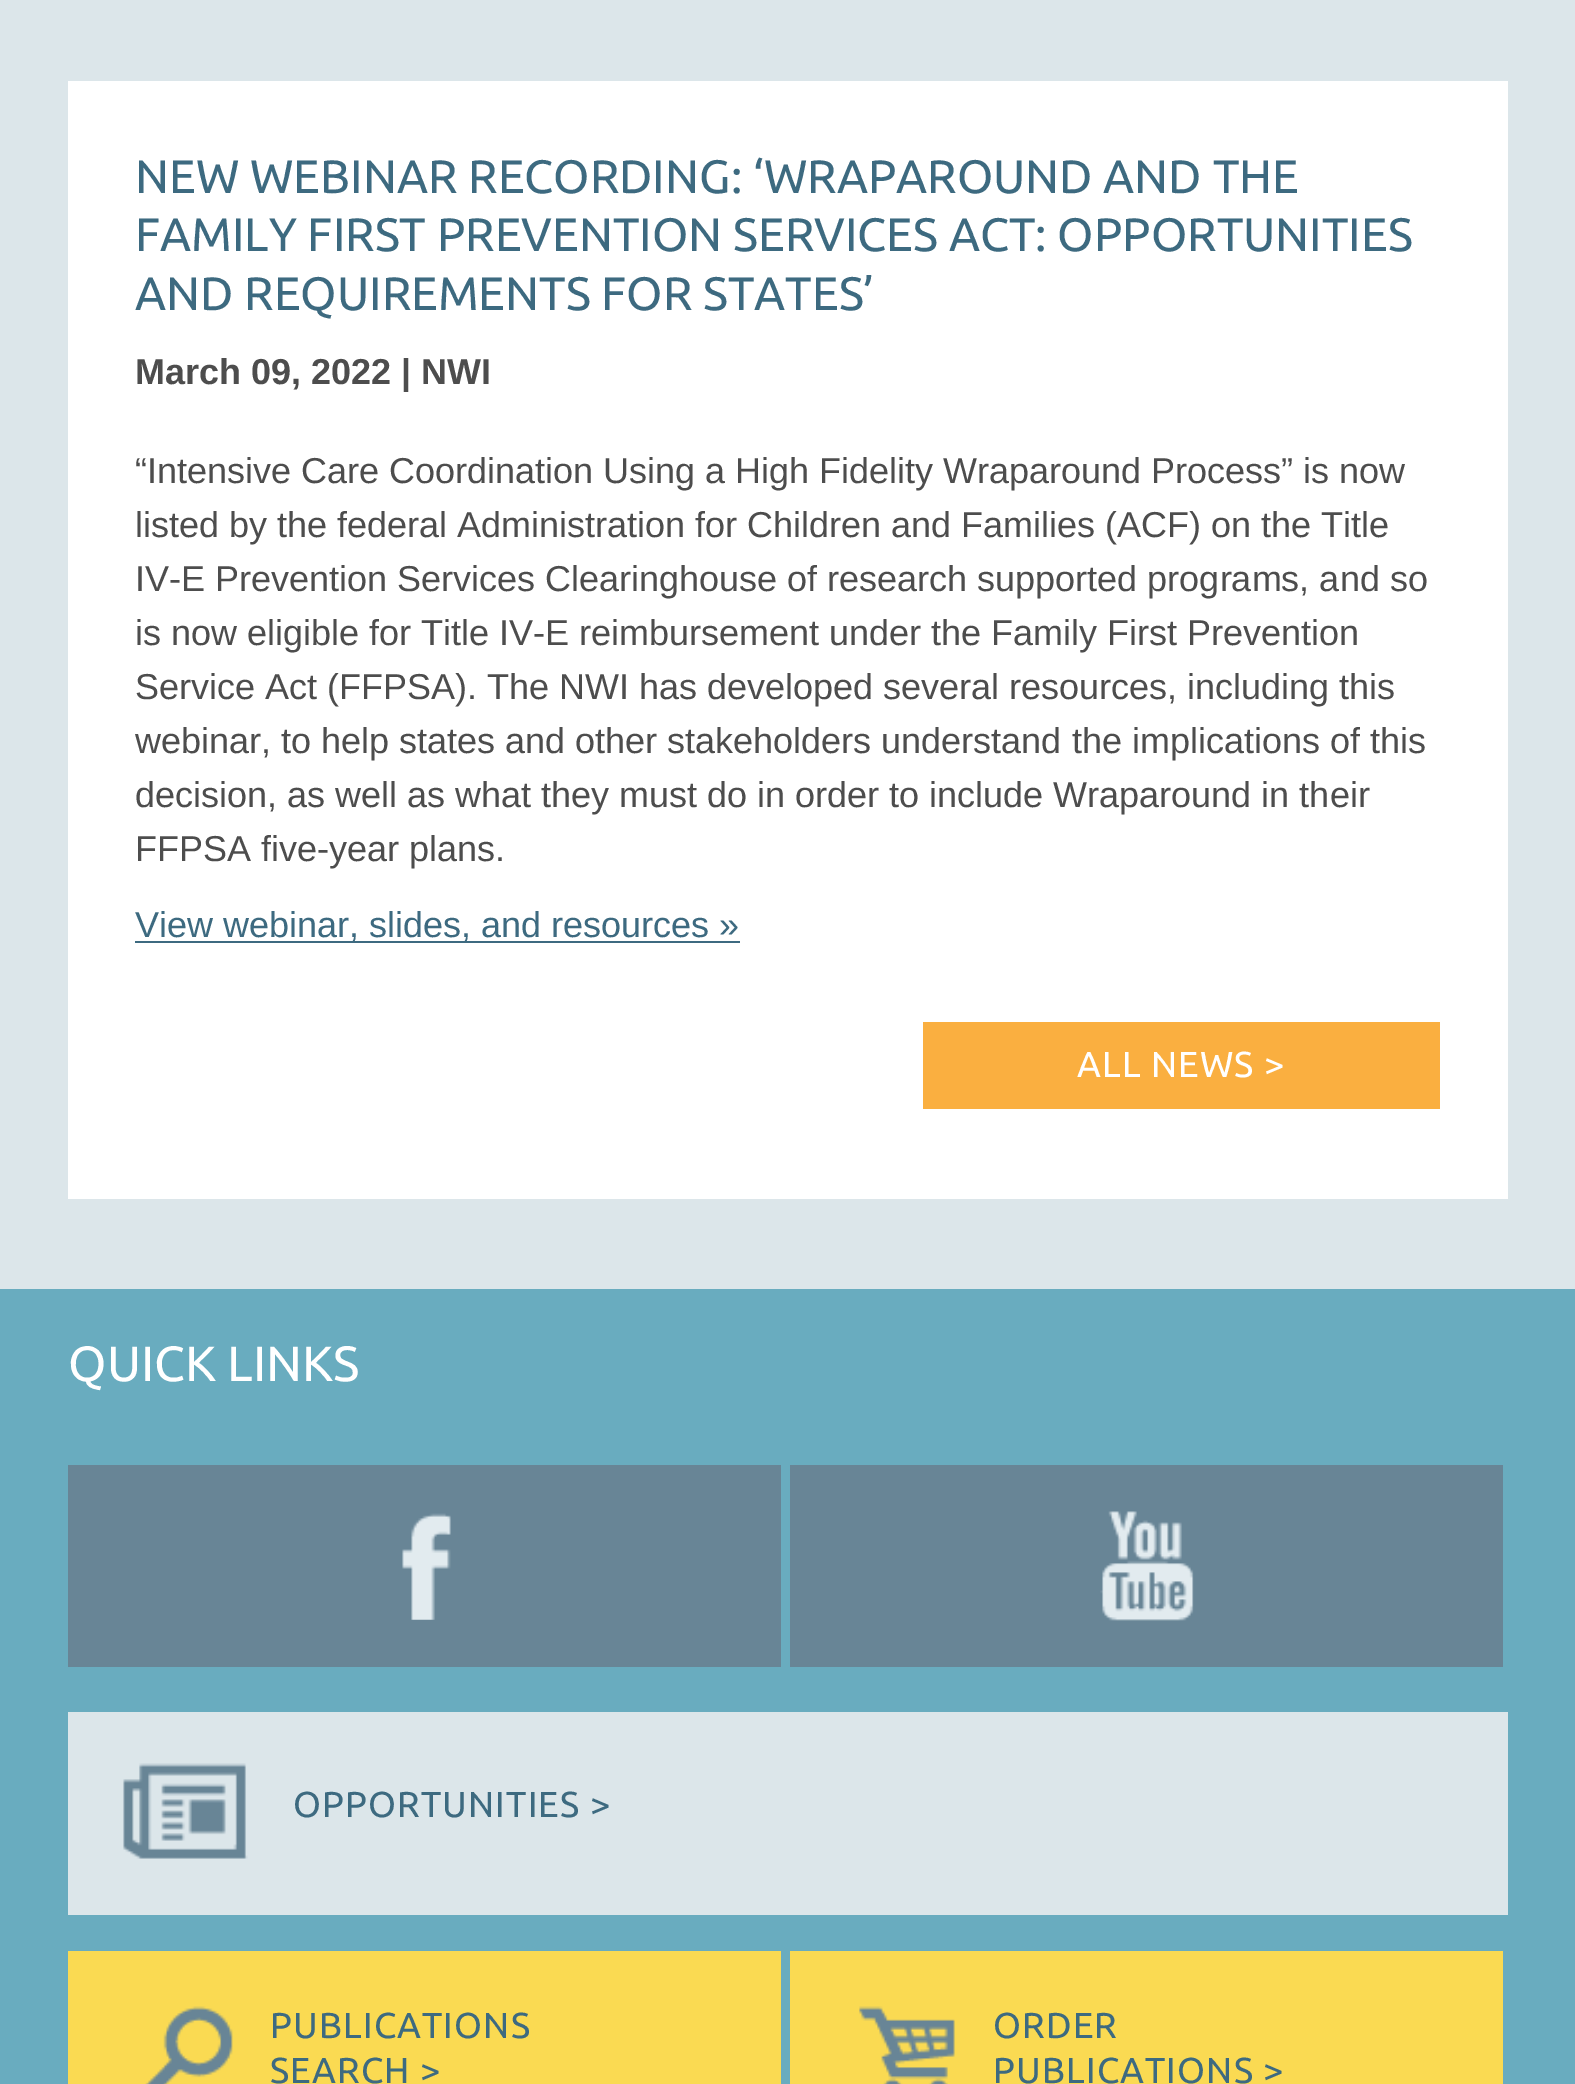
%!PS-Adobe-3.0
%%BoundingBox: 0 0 1575 2084
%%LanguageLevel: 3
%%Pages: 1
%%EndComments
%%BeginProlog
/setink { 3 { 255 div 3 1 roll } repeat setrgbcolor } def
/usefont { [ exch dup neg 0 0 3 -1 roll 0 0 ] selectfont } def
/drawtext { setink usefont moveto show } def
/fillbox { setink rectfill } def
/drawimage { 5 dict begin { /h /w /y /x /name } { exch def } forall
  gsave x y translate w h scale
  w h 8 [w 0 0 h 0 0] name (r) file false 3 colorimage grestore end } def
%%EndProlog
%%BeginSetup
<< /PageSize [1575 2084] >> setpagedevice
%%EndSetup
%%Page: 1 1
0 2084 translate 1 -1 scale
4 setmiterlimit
0 0 1575 2084 220 230 234 fillbox
68 81 1440 1118 255 255 255 fillbox
(NEW WEBINAR RECORDING: ‘WRAPAROUND AND THE) 135 193 /Ubuntu-Regular 46.8 61 106 128 drawtext
(FAMILY FIRST PREVENTION SERVICES ACT: OPPORTUNITIES) 135 251 /Ubuntu-Regular 46.8 61 106 128 drawtext
(AND REQUIREMENTS FOR STATES’) 135 310 /Ubuntu-Regular 46.8 61 106 128 drawtext
(March 09, 2022 | NWI) 135 384 /LiberationSans-Bold 36 77 77 77 drawtext
(“Intensive Care Coordination Using a High Fidelity Wraparound Process” is now) 135 483 /LiberationSans-Regular 36 77 77 77 drawtext
(listed by the federal Administration for Children and Families \(ACF\) on the Title) 135 537 /LiberationSans-Regular 36 77 77 77 drawtext
(IV-E Prevention Services Clearinghouse of research supported programs, and so) 135 591 /LiberationSans-Regular 36 77 77 77 drawtext
(is now eligible for Title IV-E reimbursement under the Family First Prevention) 135 645 /LiberationSans-Regular 36 77 77 77 drawtext
(Service Act \(FFPSA\). The NWI has developed several resources, including this) 135 699 /LiberationSans-Regular 36 77 77 77 drawtext
(webinar, to help states and other stakeholders understand the implications of this) 135 753 /LiberationSans-Regular 36 77 77 77 drawtext
(decision, as well as what they must do in order to include Wraparound in their) 135 807 /LiberationSans-Regular 36 77 77 77 drawtext
(FFPSA five-year plans.) 135 861 /LiberationSans-Regular 36 77 77 77 drawtext
135 941 605 2 61 106 128 fillbox
(View webinar, slides, and resources ») 135 937 /LiberationSans-Regular 36 61 106 128 drawtext
923 1022 517 87 250 175 64 fillbox
/Ubuntu-Regular 36 usefont
255 255 255 setink
1077 1077 moveto 1.1 0 (ALL NEWS >) ashow
0 1289 1575 795 105 172 191 fillbox
(QUICK LINKS) 68 1381 /Ubuntu-Regular 49.5 255 255 255 drawtext
68 1465 713 202 104 133 150 fillbox
(assets/img1.rgb) 402 1513 49 107 drawimage
790 1465 713 202 104 133 150 fillbox
(assets/img2.rgb) 1100 1511 94 110 drawimage
68 1712 1440 203 220 230 234 fillbox
(assets/img3.rgb) 123 1763 125 96 drawimage
/Ubuntu-Regular 36 usefont
61 106 128 setink
293 1817 moveto 1.1 0 (OPPORTUNITIES >) ashow
68 1951 713 133 250 218 82 fillbox
(assets/img4.rgb) 145 2006 88 78 drawimage
61 106 128 setink
270 2038 moveto 1.1 0 (PUBLICATIONS) ashow
270 2083 moveto 1.1 0 (SEARCH >) ashow
790 1951 713 133 250 218 82 fillbox
(assets/img5.rgb) 859 2006 96 78 drawimage
61 106 128 setink
993 2038 moveto 1.1 0 (ORDER) ashow
993 2083 moveto 1.1 0 (PUBLICATIONS >) ashow
showpage
%%EOF
